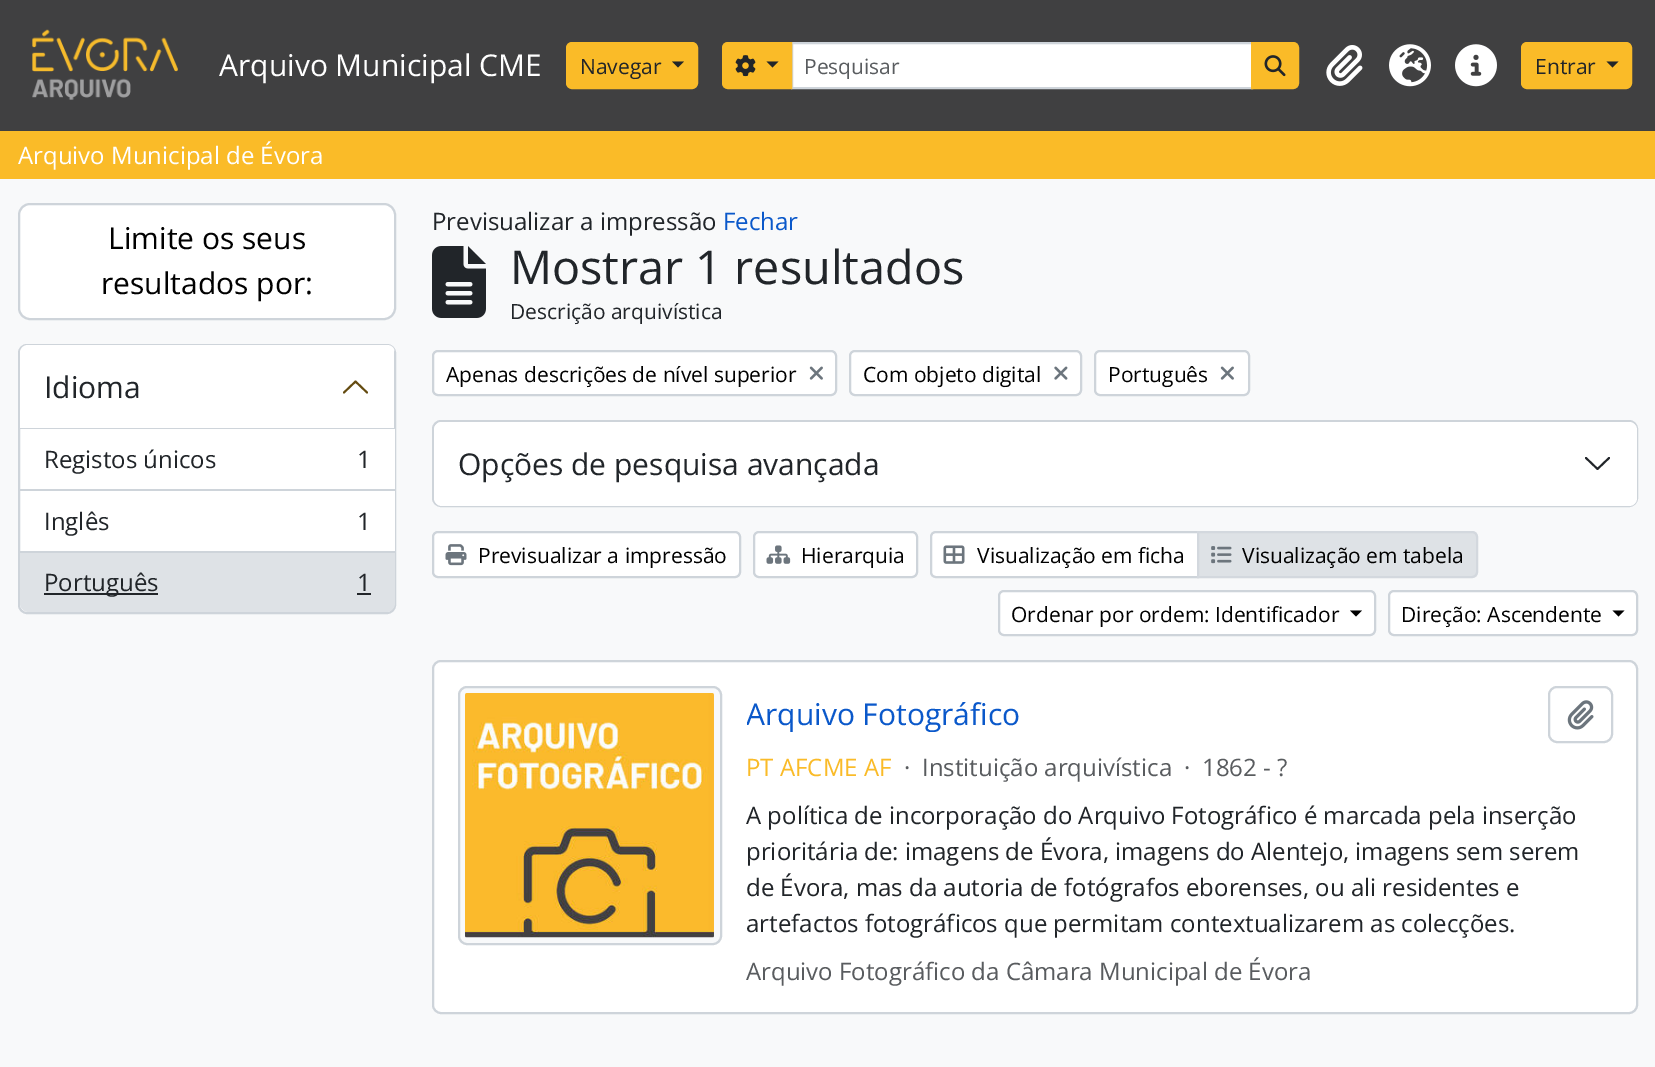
%!PS-Adobe-3.0
%%BoundingBox: 0 0 1655 1067
%%LanguageLevel: 3
%%Pages: 1
%%EndComments
%%BeginProlog
/setink { 3 { 255 div 3 1 roll } repeat setrgbcolor } def
/usefont { [ exch dup neg 0 0 3 -1 roll 0 0 ] selectfont } def
/drawtext { setink usefont moveto show } def
/fillbox { setink rectfill } def
/rrect { 5 dict begin { /r /h /w /y /x } { exch def } forall
  x r add y moveto x w add y 2 copy h add r arct x w add y h add x 1 index r arct
  x y h add x y r arct x y 2 copy exch w add exch r arct closepath end } def
/drawimage { 5 dict begin { /h /w /y /x /name } { exch def } forall
  gsave x y translate w h scale
  w h 8 [w 0 0 h 0 0] name (r) file false 3 colorimage grestore end } def
%%EndProlog
%%BeginSetup
<< /PageSize [1655 1067] >> setpagedevice
%%EndSetup
%%Page: 1 1
0 1067 translate 1 -1 scale
4 setmiterlimit
0 0 1655 1067 248 249 250 fillbox
0 0 1655 131 64 64 65 fillbox
(assets/img1.rgb) 32 29 146 71 drawimage
(Arquivo Municipal CME) 219 76 /OpenSans-Regular 30 255 255 255 drawtext
250 187 40 setink
567 43 130 45 5 rrect gsave fill grestore
2 setlinewidth
stroke
(Navegar) 580 74 /OpenSans-Regular 21 33 37 41 drawtext
672 61.5 moveto 684 61.5 lineto 678 67.5 lineto closepath fill
255 255 255 setink
792 43 moveto 1252 43 lineto 1252 88 lineto 792 88 lineto closepath gsave fill grestore
206 212 218 setink
stroke
250 187 40 setink
728 43 moveto 791 43 lineto 791 88 lineto 728 88 lineto 725 88 723 86 723 83 curveto 723 48 lineto 723 45 725 43 728 43 curveto closepath gsave fill grestore
stroke
(assets/img2.rgb) 735 55 21 22 drawimage
33 37 41 setink
766.5 61.5 moveto 778.5 61.5 lineto 772.5 67.5 lineto closepath fill
(Pesquisar) 804 74 /OpenSans-Regular 21 89 92 95 drawtext
250 187 40 setink
1252 43 moveto 1293 43 lineto 1296 43 1298 45 1298 48 curveto 1298 83 lineto 1298 86 1296 88 1293 88 curveto 1252 88 lineto closepath gsave fill grestore
stroke
(assets/img3.rgb) 1264 55 22 22 drawimage
(assets/img4.rgb) 1326 45 37 41 drawimage
(assets/img5.rgb) 1389 44 42 43 drawimage
(assets/img6.rgb) 1455 44 42 43 drawimage
1522 43 109 45 5 rrect gsave fill grestore
stroke
(Entrar) 1535 74 /OpenSans-Regular 21 33 37 41 drawtext
1606.5 61.5 moveto 1618.5 61.5 lineto 1612.5 67.5 lineto closepath fill
0 131 1655 48 250 187 40 fillbox
(Arquivo Municipal de Évora) 18 164 /OpenSans-Regular 24 255 255 255 drawtext
19 204 376 115 11 rrect gsave fill grestore
206 212 218 setink
stroke
(Limite os seus) 108 249 /OpenSans-Regular 30 0 0 0 drawtext
(resultados por:) 101 294 /OpenSans-Regular 30 0 0 0 drawtext
255 255 255 setink
19 345 376 268 8 rrect gsave fill grestore
206 212 218 setink
stroke
255 255 255 setink
28 345 moveto 387 345 lineto 391.5 345 395 348.5 395 353 curveto 395 429 lineto 20 429 lineto 20 353 lineto 20 348.5 23.5 345 28 345 curveto closepath fill
206 212 218 setink
20 428 moveto 20 429 lineto 395 429 lineto 395 353 lineto 395 351 394 350 394 348 curveto 394 351 lineto 394 428 lineto closepath fill
(Idioma) 44 398 /OpenSans-Regular 30 33 37 41 drawtext
100 75 16 setink
1.9 setlinewidth
1 setlinecap
1 setlinejoin
367 392.5 moveto 355.5 381.5 lineto 344 392.5 lineto stroke
394 429 1 60 255 255 255 fillbox
20 489 375 2 206 212 218 fillbox
(Registos únicos) 44 468 /OpenSans-Regular 24 33 37 41 drawtext
(1) 357 468 /OpenSans-Regular 24 33 37 41 drawtext
394 491 1 60 255 255 255 fillbox
(Inglês) 44 530 /OpenSans-Regular 24 33 37 41 drawtext
(1) 357 530 /OpenSans-Regular 24 33 37 41 drawtext
222 226 230 setink
20 552 moveto 395 552 lineto 395 603 lineto 395 608 391 612 386 612 curveto 29 612 lineto 24 612 20 608 20 603 curveto closepath fill
20 551 375 2 206 212 218 fillbox
44 593 114 2 33 37 41 fillbox
(Português) 44 591 /OpenSans-Regular 24 33 37 41 drawtext
(1) 357 591 /OpenSans-Regular 24 33 37 41 drawtext
357 593 14 2 33 37 41 fillbox
(Previsualizar a impressão) 432 230 /OpenSans-Regular 24 33 37 41 drawtext
(Fechar) 723 230 /OpenSans-Regular 24 10 88 202 drawtext
(assets/img7.rgb) 432 246 54 72 drawimage
(Mostrar 1 resultados) 510 284 /OpenSans-Regular 46.75 33 37 41 drawtext
(Descrição arquivística) 510 319 /OpenSans-Regular 21 33 37 41 drawtext
255 255 255 setink
433 351 403 44 5 rrect gsave fill grestore
206 212 218 setink
2 setlinewidth
0 setlinecap
0 setlinejoin
stroke
(Apenas descrições de nível superior) 446 382 /OpenSans-Regular 21 0 0 0 drawtext
(assets/img8.rgb) 809 366 14 14 drawimage
255 255 255 setink
850 351 231 44 5 rrect gsave fill grestore
206 212 218 setink
stroke
(Com objeto digital) 863 382 /OpenSans-Regular 21 0 0 0 drawtext
(assets/img9.rgb) 1054 366 14 14 drawimage
255 255 255 setink
1095 351 154 44 5 rrect gsave fill grestore
206 212 218 setink
stroke
(Português) 1108 382 /OpenSans-Regular 21 0 0 0 drawtext
(assets/img8.rgb) 1220 366 14 14 drawimage
255 255 255 setink
433 421 1204 85 8 rrect gsave fill grestore
206 212 218 setink
stroke
255 255 255 setink
434 422 1203 84 8 rrect fill
(Opções de pesquisa avançada) 458 475 /OpenSans-Regular 30 33 37 41 drawtext
1.9 setlinewidth
1 setlinecap
1 setlinejoin
1586 458 moveto 1597.5 469 lineto 1609 458 lineto stroke
255 255 255 setink
433 532 307 45 5 rrect gsave fill grestore
206 212 218 setink
2 setlinewidth
0 setlinecap
0 setlinejoin
stroke
(assets/img10.rgb) 445 544 22 22 drawimage
(Previsualizar a impressão) 478 563 /OpenSans-Regular 21 0 0 0 drawtext
255 255 255 setink
754 532 163 45 5 rrect gsave fill grestore
206 212 218 setink
stroke
(assets/img11.rgb) 766 545 25 19 drawimage
(Hierarquia) 801 563 /OpenSans-Regular 21 0 0 0 drawtext
255 255 255 setink
936 532 moveto 1198 532 lineto 1198 577 lineto 936 577 lineto 933 577 931 575 931 572 curveto 931 537 lineto 931 534 933 532 936 532 curveto closepath gsave fill grestore
206 212 218 setink
stroke
(assets/img12.rgb) 943 545 22 19 drawimage
(Visualização em ficha) 977 563 /OpenSans-Regular 21 0 0 0 drawtext
222 226 230 setink
1198 532 moveto 1472 532 lineto 1475 532 1477 534 1477 537 curveto 1477 572 lineto 1477 575 1475 577 1472 577 curveto 1198 577 lineto closepath gsave fill grestore
211 216 222 setink
stroke
(assets/img13.rgb) 1211 546 21 18 drawimage
(Visualização em tabela) 1242 563 /OpenSans-Regular 21 0 0 0 drawtext
255 255 255 setink
999 591 376 44 5 rrect gsave fill grestore
206 212 218 setink
stroke
(Ordenar por ordem: Identificador) 1011 622 /OpenSans-Regular 21 0 0 0 drawtext
1350 610.5 moveto 1362 610.5 lineto 1356 616.5 lineto closepath fill
255 255 255 setink
1389 591 248 44 5 rrect gsave fill grestore
206 212 218 setink
stroke
(Direção: Ascendente) 1401 622 /OpenSans-Regular 21 0 0 0 drawtext
1612.5 610.5 moveto 1624.5 610.5 lineto 1618.5 616.5 lineto closepath fill
255 255 255 setink
433 661 1204 352 8 rrect gsave fill grestore
206 212 218 setink
stroke
248 249 250 setink
459 687 262 257 8 rrect gsave fill grestore
206 212 218 setink
stroke
(assets/img14.rgb) 465 693 249 245 drawimage
gsave
747 696 273 36 rectclip
(Arquivo Fotográfico) 746 725 /OpenSans-Regular 30 10 88 202 drawtext
grestore
1549 687 63 55 8 rrect stroke
(assets/img15.rgb) 1567 700 27 30 drawimage
(PT AFCME AF) 746 776 /OpenSans-Regular 24 250 187 40 drawtext
(·) 904 776 /OpenSans-Regular 24 89 92 95 drawtext
(Instituição arquivística) 922 776 /OpenSans-Regular 24 89 92 95 drawtext
(·) 1184 776 /OpenSans-Regular 24 89 92 95 drawtext
(1862 - ?) 1202 776 /OpenSans-Regular 24 89 92 95 drawtext
(A política de incorporação do Arquivo Fotográfico é marcada pela inserção) 746 824 /OpenSans-Regular 24 33 37 41 drawtext
(prioritária de: imagens de Évora, imagens do Alentejo, imagens sem serem) 746 860 /OpenSans-Regular 24 33 37 41 drawtext
(de Évora, mas da autoria de fotógrafos eborenses, ou ali residentes e) 746 896 /OpenSans-Regular 24 33 37 41 drawtext
(artefactos fotográficos que permitam contextualizarem as colecções.) 746 932 /OpenSans-Regular 24 33 37 41 drawtext
(Arquivo Fotográfico da Câmara Municipal de Évora) 746 980 /OpenSans-Regular 24 89 92 95 drawtext
showpage
%%EOF
